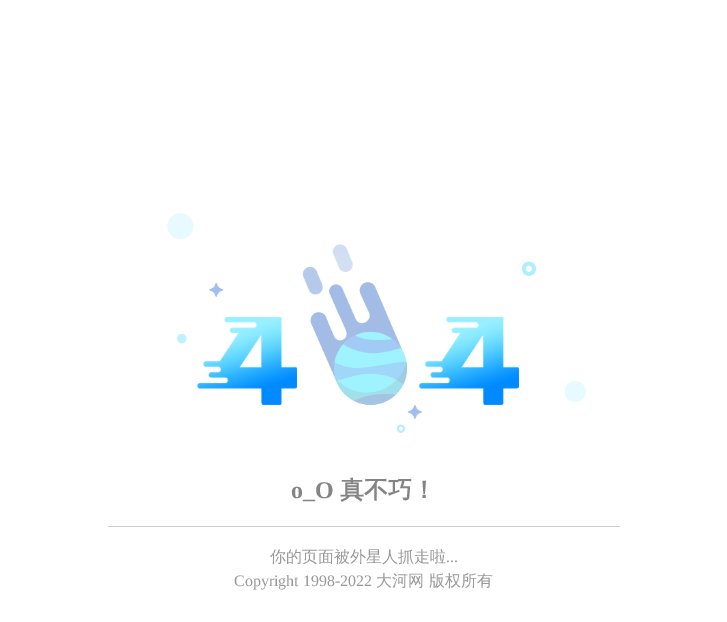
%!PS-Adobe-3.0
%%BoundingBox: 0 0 727 622
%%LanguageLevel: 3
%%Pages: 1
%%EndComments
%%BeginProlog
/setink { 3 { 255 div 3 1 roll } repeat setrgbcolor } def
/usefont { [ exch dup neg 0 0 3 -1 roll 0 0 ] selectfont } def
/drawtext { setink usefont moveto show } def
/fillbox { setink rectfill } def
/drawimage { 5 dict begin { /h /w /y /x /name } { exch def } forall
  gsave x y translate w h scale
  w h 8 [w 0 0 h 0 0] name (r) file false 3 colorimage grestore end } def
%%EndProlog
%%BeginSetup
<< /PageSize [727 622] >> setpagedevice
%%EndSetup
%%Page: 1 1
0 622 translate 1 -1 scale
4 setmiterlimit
0 0 727 622 255 255 255 fillbox
(assets/img1.rgb) 167 213 419 220 drawimage
108 526 512 1 204 204 204 fillbox
(o_O) 291 498 /LiberationSerif-Bold 24 132 132 132 drawtext
(真不巧！) 340 498 /WenQuanYiZenHei-Bold 24 132 132 132 drawtext
(你的页面被外星人抓走啦) 270 562 /WenQuanYiZenHei-Medium 16 153 153 153 drawtext
(...) 446 562 /LiberationSerif-Regular 16 153 153 153 drawtext
(Copyright 1998-2022) 234 586 /LiberationSerif-Regular 16 153 153 153 drawtext
(大河网 版权所有) 376 586 /WenQuanYiZenHei-Medium 16 153 153 153 drawtext
showpage
%%EOF
